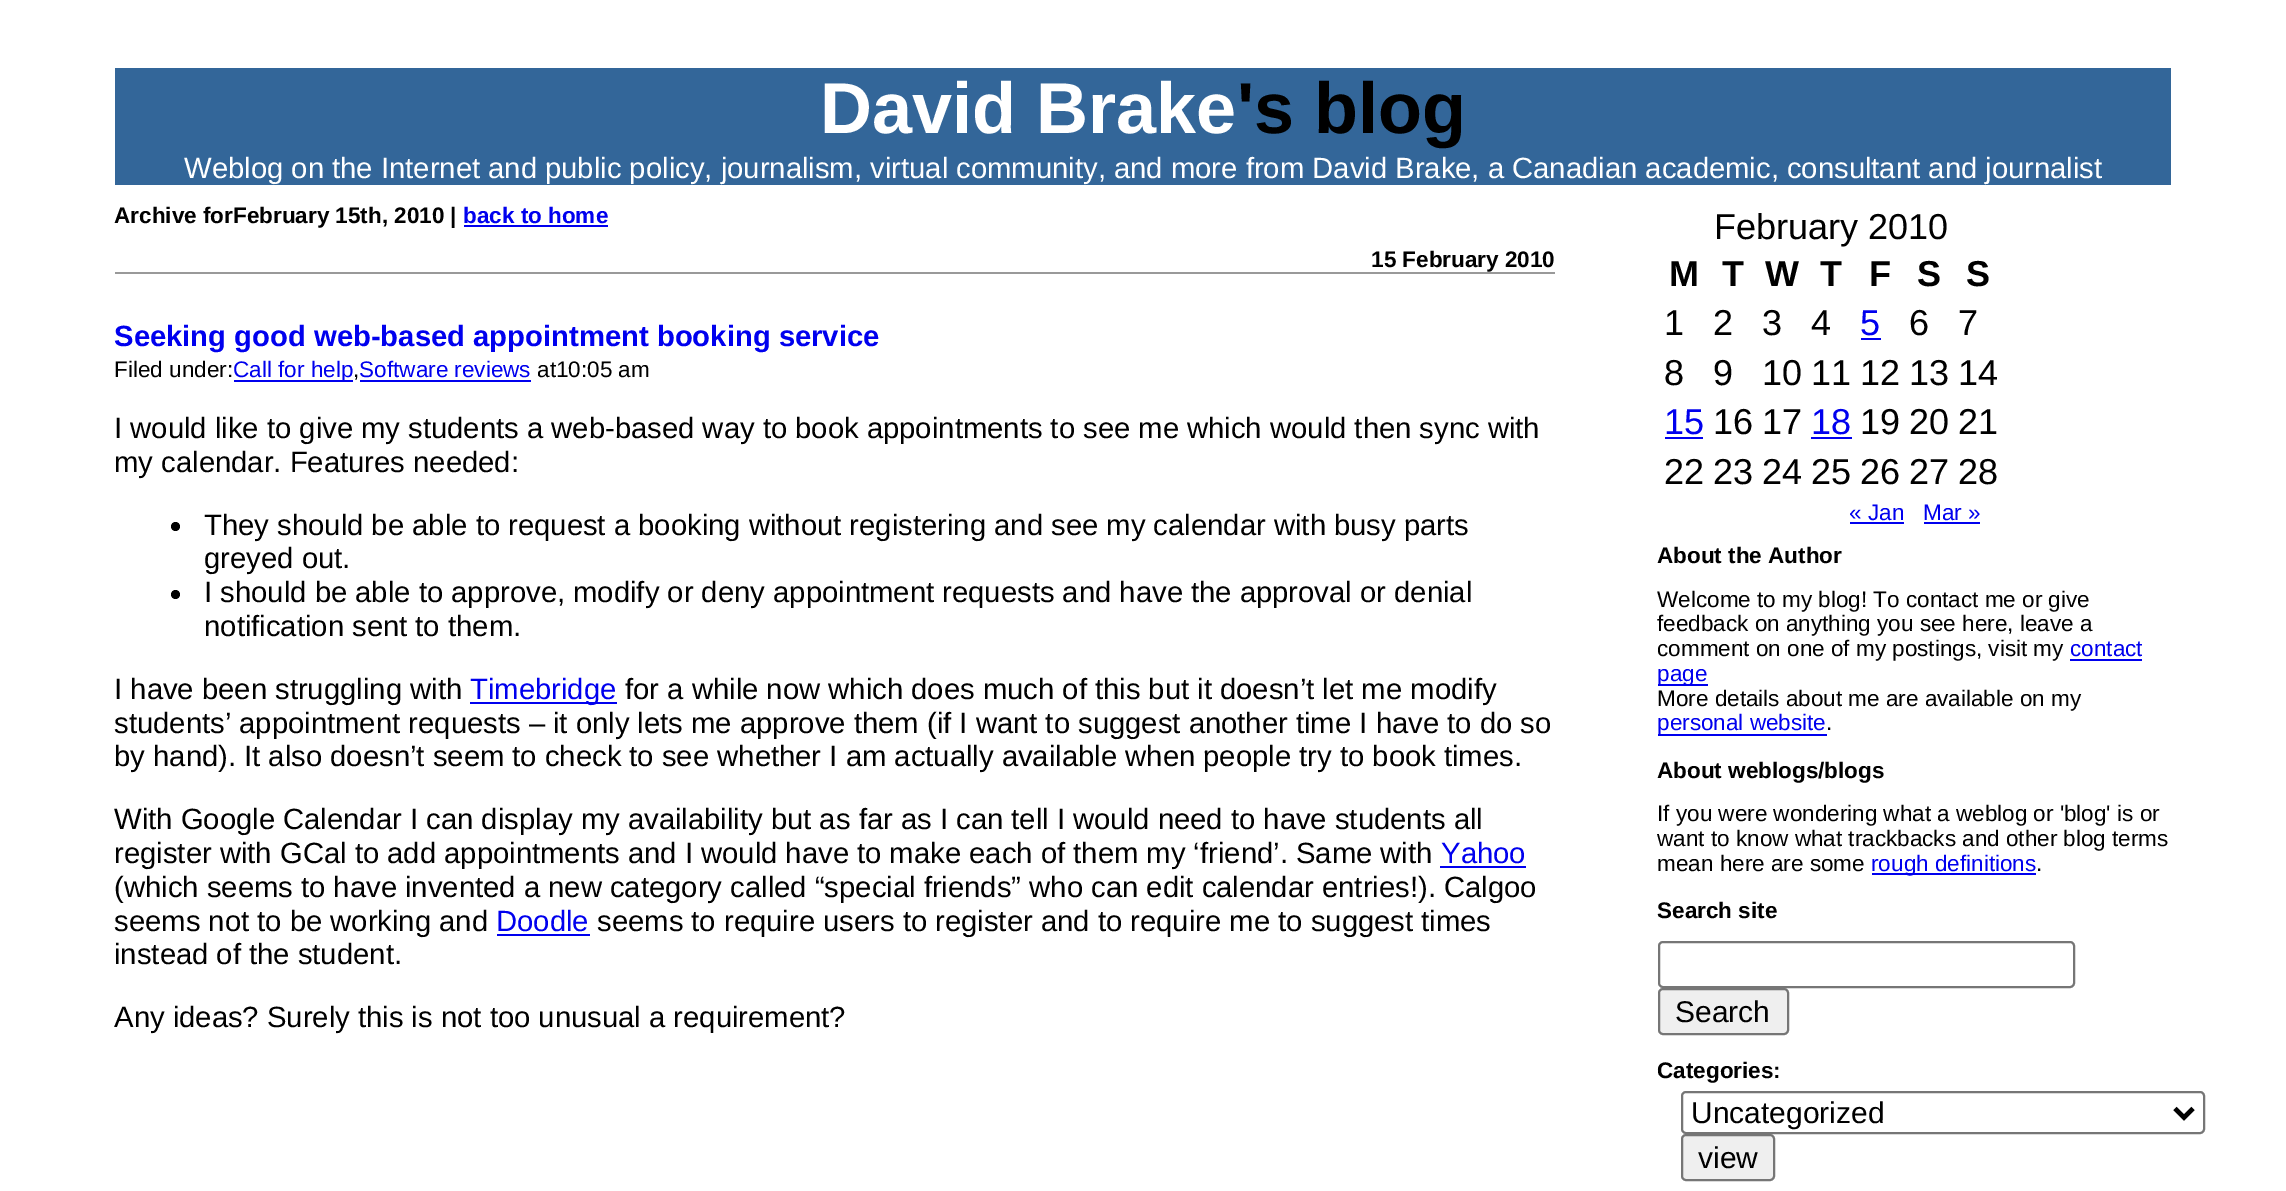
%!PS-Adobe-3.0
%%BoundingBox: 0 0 2286 1191
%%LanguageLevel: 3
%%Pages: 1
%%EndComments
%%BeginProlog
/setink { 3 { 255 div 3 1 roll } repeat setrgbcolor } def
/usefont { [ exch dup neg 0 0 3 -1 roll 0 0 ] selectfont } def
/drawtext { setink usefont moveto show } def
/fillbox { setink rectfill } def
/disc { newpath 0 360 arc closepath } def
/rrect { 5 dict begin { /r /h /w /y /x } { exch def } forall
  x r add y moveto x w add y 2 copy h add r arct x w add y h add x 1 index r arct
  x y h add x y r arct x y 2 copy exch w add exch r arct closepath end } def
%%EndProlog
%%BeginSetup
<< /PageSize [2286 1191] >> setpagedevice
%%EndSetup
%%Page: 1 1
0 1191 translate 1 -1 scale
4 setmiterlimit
0 0 2286 1191 255 255 255 fillbox
115 68 2056 117 51 102 153 fillbox
(David Brake) 820 133 /LiberationSans-Bold 72 255 255 255 drawtext
('s blog) 1237 133 /LiberationSans-Bold 72 0 0 0 drawtext
(Weblog on the Internet and public policy, journalism, virtual community, and more from David Brake, a Canadian academic, consultant and journalist) 184 178 /LiberationSans-Regular 29.25 255 255 255 drawtext
(Archive forFebruary 15th, 2010 |) 114 223 /LiberationSans-Bold 22.5 0 0 0 drawtext
(back to home) 463 223 /LiberationSans-Bold 22.5 0 0 238 drawtext
464 225 144 2 0 0 238 fillbox
115 272 1440 2 153 153 153 fillbox
(15 February 2010) 1371 267 /LiberationSans-Bold 22.5 0 0 0 drawtext
(Seeking good web-based appointment booking service) 114 346 /LiberationSans-Bold 29.25 0 0 238 drawtext
(Filed under:) 114 377 /LiberationSans-Regular 22.5 0 0 0 drawtext
234 380 119 2 0 0 238 fillbox
(Call for help Software reviews) 233 377 /LiberationSans-Regular 22.5 0 0 238 drawtext
(at10:05 am) 537 377 /LiberationSans-Regular 22.5 0 0 0 drawtext
(,) 353 377 /LiberationSans-Regular 22.5 0 0 0 drawtext
360 380 171 2 0 0 238 fillbox
(I would like to give my students a web-based way to book appointments to see me which would then sync with) 114 438 /LiberationSans-Regular 29.25 0 0 0 drawtext
(my calendar. Features needed:) 114 472 /LiberationSans-Regular 29.25 0 0 0 drawtext
175.5 526.5 4.5 disc fill
(They should be able to request a booking without registering and see my calendar with busy parts) 204 535 /LiberationSans-Regular 29.25 0 0 0 drawtext
(greyed out.) 204 568 /LiberationSans-Regular 29.25 0 0 0 drawtext
175.5 594.5 4.5 disc fill
(I should be able to approve, modify or deny appointment requests and have the approval or denial) 204 602 /LiberationSans-Regular 29.25 0 0 0 drawtext
(notification sent to them.) 204 636 /LiberationSans-Regular 29.25 0 0 0 drawtext
(I have been struggling with) 114 699 /LiberationSans-Regular 29.25 0 0 0 drawtext
470 702 147 2 0 0 238 fillbox
(Timebridge) 470 699 /LiberationSans-Regular 29.25 0 0 238 drawtext
(for a while now which does much of this but it doesn’t let me modify) 625 699 /LiberationSans-Regular 29.25 0 0 0 drawtext
(students’ appointment requests – it only lets me approve them \(if I want to suggest another time I have to do so) 114 733 /LiberationSans-Regular 29.25 0 0 0 drawtext
(by hand\). It also doesn’t seem to check to see whether I am actually available when people try to book times.) 114 766 /LiberationSans-Regular 29.25 0 0 0 drawtext
(With Google Calendar I can display my availability but as far as I can tell I would need to have students all) 114 829 /LiberationSans-Regular 29.25 0 0 0 drawtext
(register with GCal to add appointments and I would have to make each of them my ‘friend’. Same with) 114 863 /LiberationSans-Regular 29.25 0 0 0 drawtext
(Yahoo) 1441 863 /LiberationSans-Regular 29.25 0 0 238 drawtext
1440 866 86 2 0 0 238 fillbox
(\(which seems to have invented a new category called “special friends” who can edit calendar entries!\). Calgoo) 114 897 /LiberationSans-Regular 29.25 0 0 0 drawtext
(seems not to be working and) 114 931 /LiberationSans-Regular 29.25 0 0 0 drawtext
(Doodle) 496 931 /LiberationSans-Regular 29.25 0 0 238 drawtext
497 934 93 2 0 0 238 fillbox
(seems to require users to register and to require me to suggest times) 597 931 /LiberationSans-Regular 29.25 0 0 0 drawtext
(instead of the student.) 114 964 /LiberationSans-Regular 29.25 0 0 0 drawtext
(Any ideas? Surely this is not too unusual a requirement?) 114 1027 /LiberationSans-Regular 29.25 0 0 0 drawtext
(February 2010) 1714 239 /LiberationSans-Regular 36 0 0 0 drawtext
(M) 1669 286 /LiberationSans-Bold 36 0 0 0 drawtext
(T) 1722 286 /LiberationSans-Bold 36 0 0 0 drawtext
(W) 1765 286 /LiberationSans-Bold 36 0 0 0 drawtext
(T) 1820 286 /LiberationSans-Bold 36 0 0 0 drawtext
(F) 1869 286 /LiberationSans-Bold 36 0 0 0 drawtext
(S) 1917 286 /LiberationSans-Bold 36 0 0 0 drawtext
(S) 1966 286 /LiberationSans-Bold 36 0 0 0 drawtext
(1) 1664 335 /LiberationSans-Regular 36 0 0 0 drawtext
(2) 1713 335 /LiberationSans-Regular 36 0 0 0 drawtext
(3) 1762 335 /LiberationSans-Regular 36 0 0 0 drawtext
(4) 1811 335 /LiberationSans-Regular 36 0 0 0 drawtext
(5) 1860 335 /LiberationSans-Regular 36 0 0 238 drawtext
1861 338 20 2 0 0 238 fillbox
(6) 1909 335 /LiberationSans-Regular 36 0 0 0 drawtext
(7) 1958 335 /LiberationSans-Regular 36 0 0 0 drawtext
(8) 1664 385 /LiberationSans-Regular 36 0 0 0 drawtext
(9) 1713 385 /LiberationSans-Regular 36 0 0 0 drawtext
(10) 1762 385 /LiberationSans-Regular 36 0 0 0 drawtext
(11) 1811 385 /LiberationSans-Regular 36 0 0 0 drawtext
(12) 1860 385 /LiberationSans-Regular 36 0 0 0 drawtext
(13) 1909 385 /LiberationSans-Regular 36 0 0 0 drawtext
(14) 1958 385 /LiberationSans-Regular 36 0 0 0 drawtext
(15) 1664 434 /LiberationSans-Regular 36 0 0 238 drawtext
1665 437 38 2 0 0 238 fillbox
(16) 1713 434 /LiberationSans-Regular 36 0 0 0 drawtext
(17) 1762 434 /LiberationSans-Regular 36 0 0 0 drawtext
(18) 1811 434 /LiberationSans-Regular 36 0 0 238 drawtext
1811 437 41 2 0 0 238 fillbox
(19) 1860 434 /LiberationSans-Regular 36 0 0 0 drawtext
(20) 1909 434 /LiberationSans-Regular 36 0 0 0 drawtext
(21) 1958 434 /LiberationSans-Regular 36 0 0 0 drawtext
(22) 1664 484 /LiberationSans-Regular 36 0 0 0 drawtext
(23) 1713 484 /LiberationSans-Regular 36 0 0 0 drawtext
(24) 1762 484 /LiberationSans-Regular 36 0 0 0 drawtext
(25) 1811 484 /LiberationSans-Regular 36 0 0 0 drawtext
(26) 1860 484 /LiberationSans-Regular 36 0 0 0 drawtext
(27) 1909 484 /LiberationSans-Regular 36 0 0 0 drawtext
(28) 1958 484 /LiberationSans-Regular 36 0 0 0 drawtext
(« Jan) 1849 520 /LiberationSans-Regular 22.5 0 0 238 drawtext
1850 522 54 2 0 0 238 fillbox
(Mar ») 1923 520 /LiberationSans-Regular 22.5 0 0 238 drawtext
1924 522 56 2 0 0 238 fillbox
(About the Author) 1657 563 /LiberationSans-Bold 22.5 0 0 0 drawtext
(Welcome to my blog! To contact me or give) 1657 607 /LiberationSans-Regular 22.5 0 0 0 drawtext
(feedback on anything you see here, leave a) 1657 631 /LiberationSans-Regular 22.5 0 0 0 drawtext
(comment on one of my postings, visit my) 1657 656 /LiberationSans-Regular 22.5 0 0 0 drawtext
(contact) 2070 656 /LiberationSans-Regular 22.5 0 0 238 drawtext
2070 659 72 2 0 0 238 fillbox
1658 684 50 2 0 0 238 fillbox
(page) 1657 681 /LiberationSans-Regular 22.5 0 0 238 drawtext
(More details about me are available on my) 1657 706 /LiberationSans-Regular 22.5 0 0 0 drawtext
1658 734 169 2 0 0 238 fillbox
(personal website) 1657 730 /LiberationSans-Regular 22.5 0 0 238 drawtext
(.) 1826 730 /LiberationSans-Regular 22.5 0 0 0 drawtext
(About weblogs/blogs) 1657 778 /LiberationSans-Bold 22.5 0 0 0 drawtext
(If you were wondering what a weblog or 'blog' is or) 1657 821 /LiberationSans-Regular 22.5 0 0 0 drawtext
(want to know what trackbacks and other blog terms) 1657 846 /LiberationSans-Regular 22.5 0 0 0 drawtext
(mean here are some) 1657 871 /LiberationSans-Regular 22.5 0 0 0 drawtext
1872 873 164 2 0 0 238 fillbox
(rough definitions) 1871 871 /LiberationSans-Regular 22.5 0 0 238 drawtext
(.) 2036 871 /LiberationSans-Regular 22.5 0 0 0 drawtext
(Search site) 1657 918 /LiberationSans-Bold 22.5 0 0 0 drawtext
118 118 118 setink
2 setlinewidth
1659 942 415 45 4 rrect stroke
239 239 239 setink
1659 989 129 45 4 rrect gsave fill grestore
118 118 118 setink
stroke
(Search) 1675 1022 /LiberationSans-Regular 30 0 0 0 drawtext
(Categories:) 1657 1078 /LiberationSans-Bold 22.5 0 0 0 drawtext
118 118 118 setink
1682 1092 522 41 4 rrect stroke
0 0 0 setink
4.5 setlinewidth
2175 1108.5 moveto 2184 1117.5 lineto 2193 1108.5 lineto stroke
(Uncategorized) 1691 1123 /LiberationSans-Regular 30 0 0 0 drawtext
239 239 239 setink
1682 1135 92 45 4 rrect gsave fill grestore
118 118 118 setink
2 setlinewidth
stroke
(view) 1698 1168 /LiberationSans-Regular 30 0 0 0 drawtext
showpage
%%EOF
